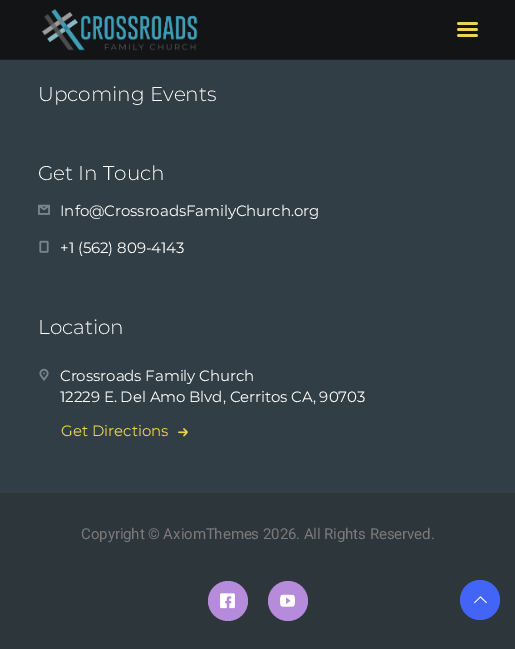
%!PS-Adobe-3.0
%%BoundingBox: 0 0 515 649
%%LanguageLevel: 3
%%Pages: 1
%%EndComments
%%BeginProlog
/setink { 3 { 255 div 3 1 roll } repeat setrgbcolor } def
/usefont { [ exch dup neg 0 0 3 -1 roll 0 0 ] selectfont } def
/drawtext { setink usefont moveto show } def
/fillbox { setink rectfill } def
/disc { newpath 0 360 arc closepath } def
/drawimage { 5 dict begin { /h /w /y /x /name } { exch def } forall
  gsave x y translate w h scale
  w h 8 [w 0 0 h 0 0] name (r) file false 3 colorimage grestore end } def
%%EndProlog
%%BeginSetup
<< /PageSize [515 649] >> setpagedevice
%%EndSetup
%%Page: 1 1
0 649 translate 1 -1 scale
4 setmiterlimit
0 0 515 649 50 62 69 fillbox
0 0 515 59 18 20 21 fillbox
0 59 515 1 28 31 32 fillbox
(assets/img1.rgb) 42 9 156 42 drawimage
(assets/img2.rgb) 457 22 21 15 drawimage
(Upcoming Events) 38 101 /Montserrat-Light 20 255 255 255 drawtext
(Get In Touch) 38 180 /Montserrat-Light 20 255 255 255 drawtext
(assets/img3.rgb) 38 204 12 11 drawimage
/Montserrat-Regular 15 usefont
60 216 moveto -0.08 0 (Info@CrossroadsFamilyChurch.org) ashow
(assets/img4.rgb) 39 240 10 13 drawimage
60 253 moveto -0.08 0 (+1 \(562\) 809-4143) ashow
(Location) 38 334 /Montserrat-Light 20 255 255 255 drawtext
(assets/img5.rgb) 39 368 10 13 drawimage
/Montserrat-Regular 15 usefont
60 381 moveto -0.08 0 (Crossroads Family Church) ashow
60 402 moveto -0.08 0 (12229 E. Del Amo Blvd, Cerritos CA, 90703) ashow
(Get Directions) 61 436 /Montserrat-Regular 15 237 213 80 drawtext
(assets/img6.rgb) 178 428 10 9 drawimage
0 493 515 156 44 54 59 fillbox
/Roboto-Regular 15 usefont
122 122 122 setink
81 539 moveto -0.08 0 (Copyright © AxiomThemes 2026. All Rights Reserved.) ashow
182 139 219 setink
228 601 20 disc fill
(assets/img7.rgb) 220 593 15 16 drawimage
288 601 20 disc fill
(assets/img8.rgb) 280 594 15 13 drawimage
66 101 248 setink
480 600 20 disc fill
(assets/img9.rgb) 474 596 13 8 drawimage
showpage
%%EOF
